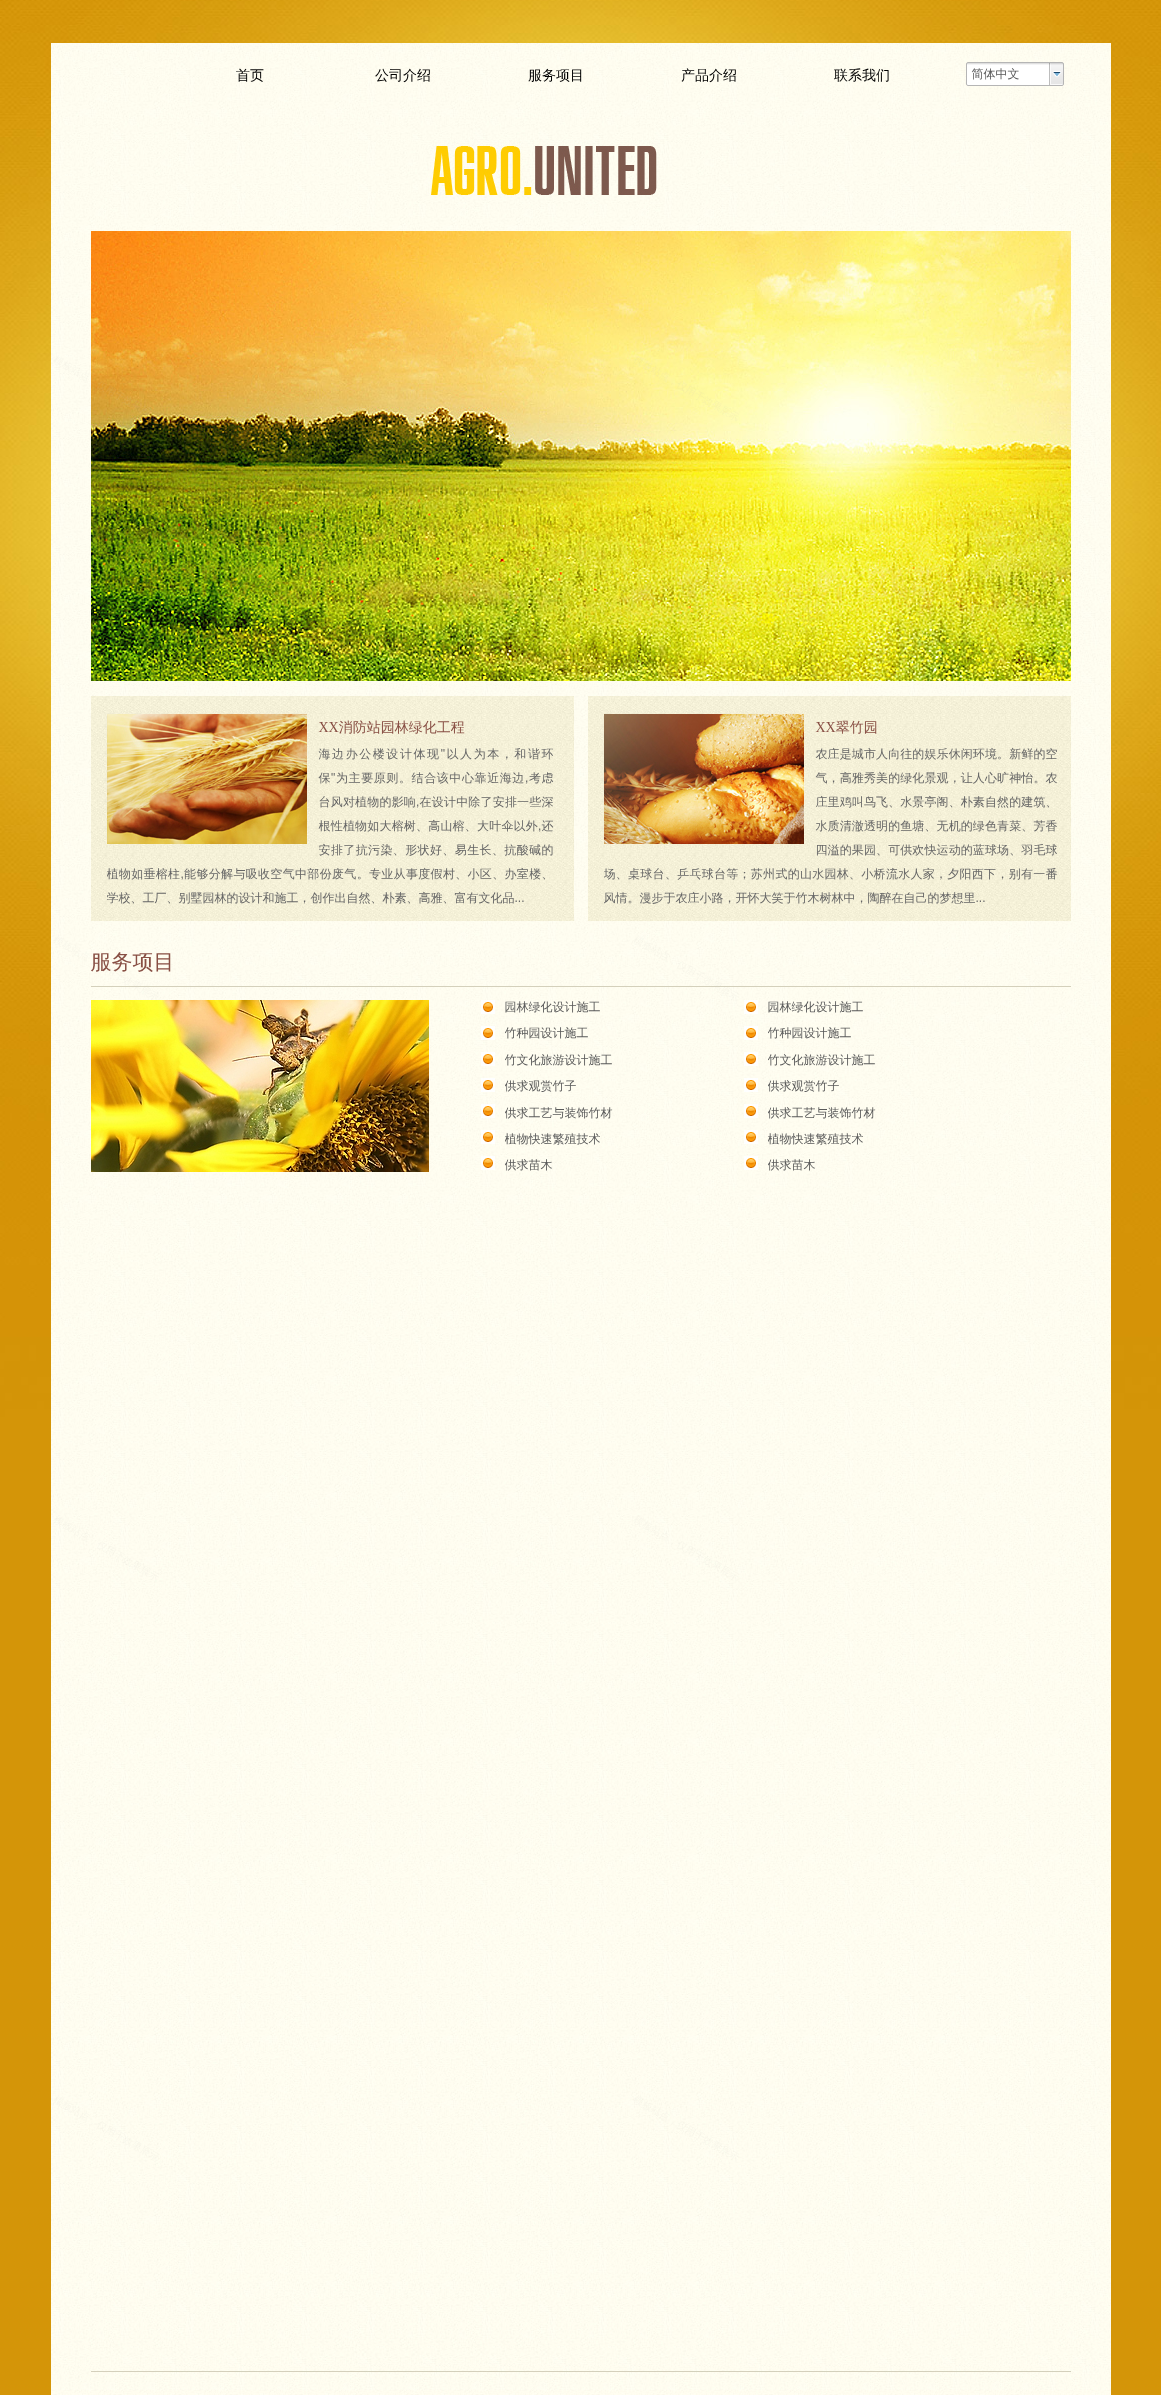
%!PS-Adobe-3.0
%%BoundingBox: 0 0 1161 2395
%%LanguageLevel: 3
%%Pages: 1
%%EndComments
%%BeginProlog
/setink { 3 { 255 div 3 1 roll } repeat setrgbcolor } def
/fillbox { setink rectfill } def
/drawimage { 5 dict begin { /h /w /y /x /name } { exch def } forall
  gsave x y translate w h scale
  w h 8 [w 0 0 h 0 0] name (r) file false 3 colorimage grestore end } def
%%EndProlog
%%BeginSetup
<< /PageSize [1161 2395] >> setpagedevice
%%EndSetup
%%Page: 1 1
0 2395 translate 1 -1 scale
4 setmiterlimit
0 0 1161 2395 255 255 255 fillbox
(assets/img1.rgb) 0 0 1161 2395 drawimage
showpage
%%EOF
